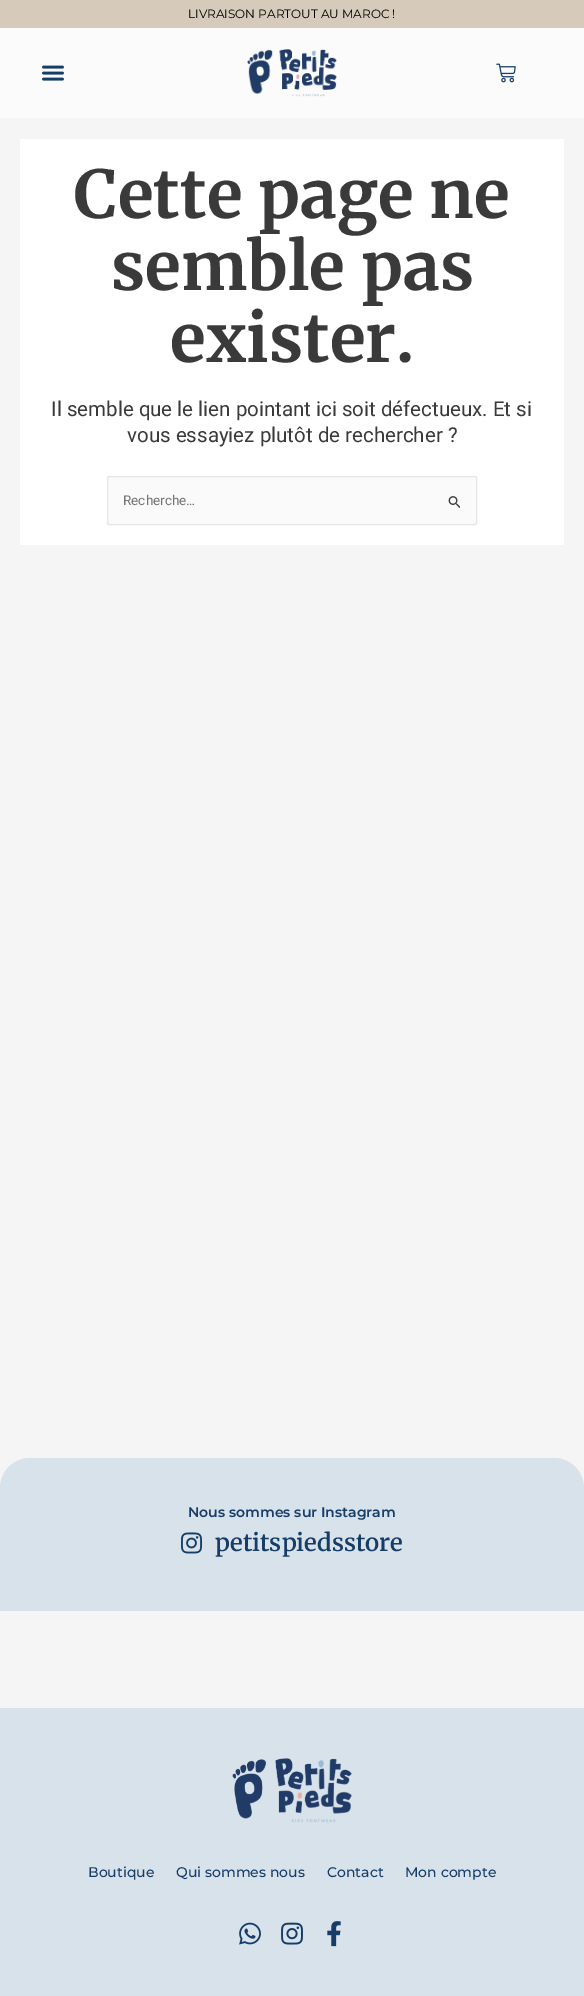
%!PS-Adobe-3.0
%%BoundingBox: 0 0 584 1996
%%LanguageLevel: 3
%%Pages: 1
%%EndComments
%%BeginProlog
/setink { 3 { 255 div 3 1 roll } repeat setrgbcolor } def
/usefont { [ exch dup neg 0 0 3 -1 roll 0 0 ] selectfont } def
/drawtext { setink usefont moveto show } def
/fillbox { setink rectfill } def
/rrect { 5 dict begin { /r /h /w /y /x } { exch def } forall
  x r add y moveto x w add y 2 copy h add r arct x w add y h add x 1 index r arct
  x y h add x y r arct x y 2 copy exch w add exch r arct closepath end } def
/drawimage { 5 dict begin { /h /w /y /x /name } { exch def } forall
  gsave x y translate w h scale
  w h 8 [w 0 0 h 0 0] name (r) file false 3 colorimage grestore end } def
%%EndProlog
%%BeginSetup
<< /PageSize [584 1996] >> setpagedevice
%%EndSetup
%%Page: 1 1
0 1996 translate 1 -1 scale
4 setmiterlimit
0 0 584 1996 245 245 245 fillbox
0 0 584 28 214 202 186 fillbox
(LIVRAISON PARTOUT AU MAROC !) 188 18 /Montserrat-Regular 12 0 0 0 drawtext
0 28 584 90 251 251 251 fillbox
(assets/img1.rgb) 42 65 22 16 drawimage
(assets/img2.rgb) 247 49 90 48 drawimage
(assets/img3.rgb) 496 63 20 20 drawimage
20 139 544 406 255 255 255 fillbox
(Cette page ne) 74 218 /Merriweather-Bold 66 58 58 58 drawtext
(semble pas) 111 290 /Merriweather-Bold 66 58 58 58 drawtext
(exister.) 170 362 /Merriweather-Bold 66 58 58 58 drawtext
(Il semble que le lien pointant ici soit défectueux. Et si) 51 416 /Roboto-Regular 20.5 58 58 58 drawtext
(vous essayiez plutôt de rechercher ?) 127 442 /Roboto-Regular 20.5 58 58 58 drawtext
250 250 250 setink
107.5 476.5 369 48 1.5 rrect gsave fill grestore
229 229 229 setink
stroke
(Recherche…) 123 505 /Roboto-Regular 13.5 117 117 117 drawtext
(assets/img4.rgb) 448 496 12 12 drawimage
216 226 234 setink
30 1458 moveto 554 1458 lineto 570.5 1458 584 1471.5 584 1488 curveto 584 1611 lineto 0 1611 lineto 0 1488 lineto 0 1471.5 13.5 1458 30 1458 curveto closepath fill
(Nous sommes sur Instagram) 188 1517 /Montserrat-SemiBold 14 22 60 104 drawtext
(assets/img5.rgb) 181 1532 22 22 drawimage
(petitspiedsstore) 215 1551 /Merriweather-SemiBold 24 22 60 104 drawtext
0 1708 584 288 216 226 234 fillbox
(assets/img6.rgb) 232 1758 120 65 drawimage
(Boutique) 88 1877 /Montserrat-Medium 14 22 60 104 drawtext
(Qui sommes nous) 176 1877 /Montserrat-Medium 14 22 60 104 drawtext
(Contact) 327 1877 /Montserrat-Medium 14 22 60 104 drawtext
(Mon compte) 405 1877 /Montserrat-Medium 14 22 60 104 drawtext
(assets/img7.rgb) 239 1922 22 23 drawimage
(assets/img8.rgb) 281 1922 22 23 drawimage
(assets/img9.rgb) 327 1921 14 26 drawimage
showpage
%%EOF
